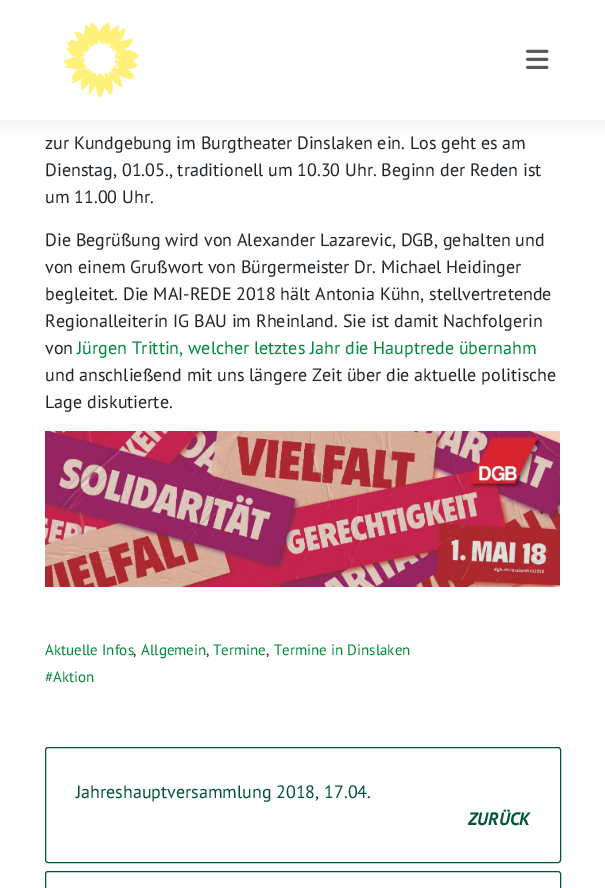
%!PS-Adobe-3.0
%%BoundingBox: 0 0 605 888
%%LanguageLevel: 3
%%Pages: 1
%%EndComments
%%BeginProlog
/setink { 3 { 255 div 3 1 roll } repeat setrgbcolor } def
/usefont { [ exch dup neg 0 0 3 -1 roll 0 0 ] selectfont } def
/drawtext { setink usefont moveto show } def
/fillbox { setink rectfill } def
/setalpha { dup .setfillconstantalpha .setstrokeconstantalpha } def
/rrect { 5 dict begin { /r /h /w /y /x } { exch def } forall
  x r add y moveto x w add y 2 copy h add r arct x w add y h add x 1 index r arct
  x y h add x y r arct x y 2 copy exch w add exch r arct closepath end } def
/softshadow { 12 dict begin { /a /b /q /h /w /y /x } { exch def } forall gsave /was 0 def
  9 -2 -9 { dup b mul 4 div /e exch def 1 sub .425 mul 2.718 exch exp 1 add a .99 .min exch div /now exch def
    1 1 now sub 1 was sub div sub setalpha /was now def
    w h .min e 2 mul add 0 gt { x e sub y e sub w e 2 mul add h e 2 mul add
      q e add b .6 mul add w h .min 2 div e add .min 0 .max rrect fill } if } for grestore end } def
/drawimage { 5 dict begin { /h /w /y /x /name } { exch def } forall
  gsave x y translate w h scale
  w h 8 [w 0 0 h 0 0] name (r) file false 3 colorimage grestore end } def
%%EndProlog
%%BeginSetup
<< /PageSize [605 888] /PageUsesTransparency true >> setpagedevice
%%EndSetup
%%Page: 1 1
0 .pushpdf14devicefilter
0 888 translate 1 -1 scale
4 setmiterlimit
0 0 605 888 255 255 255 fillbox
0 0 0 setink
0 1 605 120 0 10 0.08 softshadow
0 0 605 120 255 255 255 fillbox
(assets/img1.rgb) 63 22 76 76 drawimage
(assets/img2.rgb) 526 49 23 20 drawimage
(zur Kundgebung im Burgtheater Dinslaken ein. Los geht es am) 45 149 /PTSans-Regular 18 33 37 41 drawtext
(Dienstag, 01.05., traditionell um 10.30 Uhr. Beginn der Reden ist) 45 176 /PTSans-Regular 18 33 37 41 drawtext
(um 11.00 Uhr.) 45 203 /PTSans-Regular 18 33 37 41 drawtext
(Die Begrüßung wird von Alexander Lazarevic, DGB, gehalten und) 45 246 /PTSans-Regular 18 33 37 41 drawtext
(von einem Grußwort von Bürgermeister Dr. Michael Heidinger) 45 273 /PTSans-Regular 18 33 37 41 drawtext
(begleitet. Die MAI-REDE 2018 hält Antonia Kühn, stellvertretende) 45 300 /PTSans-Regular 18 33 37 41 drawtext
(Regionalleiterin IG BAU im Rheinland. Sie ist damit Nachfolgerin) 45 327 /PTSans-Regular 18 33 37 41 drawtext
(von) 45 354 /PTSans-Regular 18 33 37 41 drawtext
(Jürgen Trittin, welcher letztes Jahr die Hauptrede übernahm) 77 354 /PTSans-Regular 18 0 137 57 drawtext
(und anschließend mit uns längere Zeit über die aktuelle politische) 45 381 /PTSans-Regular 18 33 37 41 drawtext
(Lage diskutierte.) 45 408 /PTSans-Regular 18 33 37 41 drawtext
(assets/img3.rgb) 45 431 515 156 drawimage
(Aktuelle Infos) 45 655 /PTSans-Regular 15 0 137 57 drawtext
(,) 133 655 /PTSans-Regular 15 33 37 41 drawtext
(Allgemein) 141 655 /PTSans-Regular 15 0 137 57 drawtext
(,) 206 655 /PTSans-Regular 15 33 37 41 drawtext
(Termine) 213 655 /PTSans-Regular 15 0 137 57 drawtext
(,) 266 655 /PTSans-Regular 15 33 37 41 drawtext
(Termine in Dinslaken) 274 655 /PTSans-Regular 15 0 137 57 drawtext
(#Aktion) 45 682 /PTSans-Regular 15 0 137 57 drawtext
0 84 55 setink
45.5 747.5 515 115 2.5 rrect stroke
(Jahreshauptversammlung 2018, 17.04.) 76 798 /PTSans-Regular 18 0 84 55 drawtext
(ZURÜCK) 468 825 /PTSans-BoldItalic 18 0 84 55 drawtext
45.5 871.5 515 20 2.5 rrect stroke
.poppdf14devicefilter showpage
%%EOF
